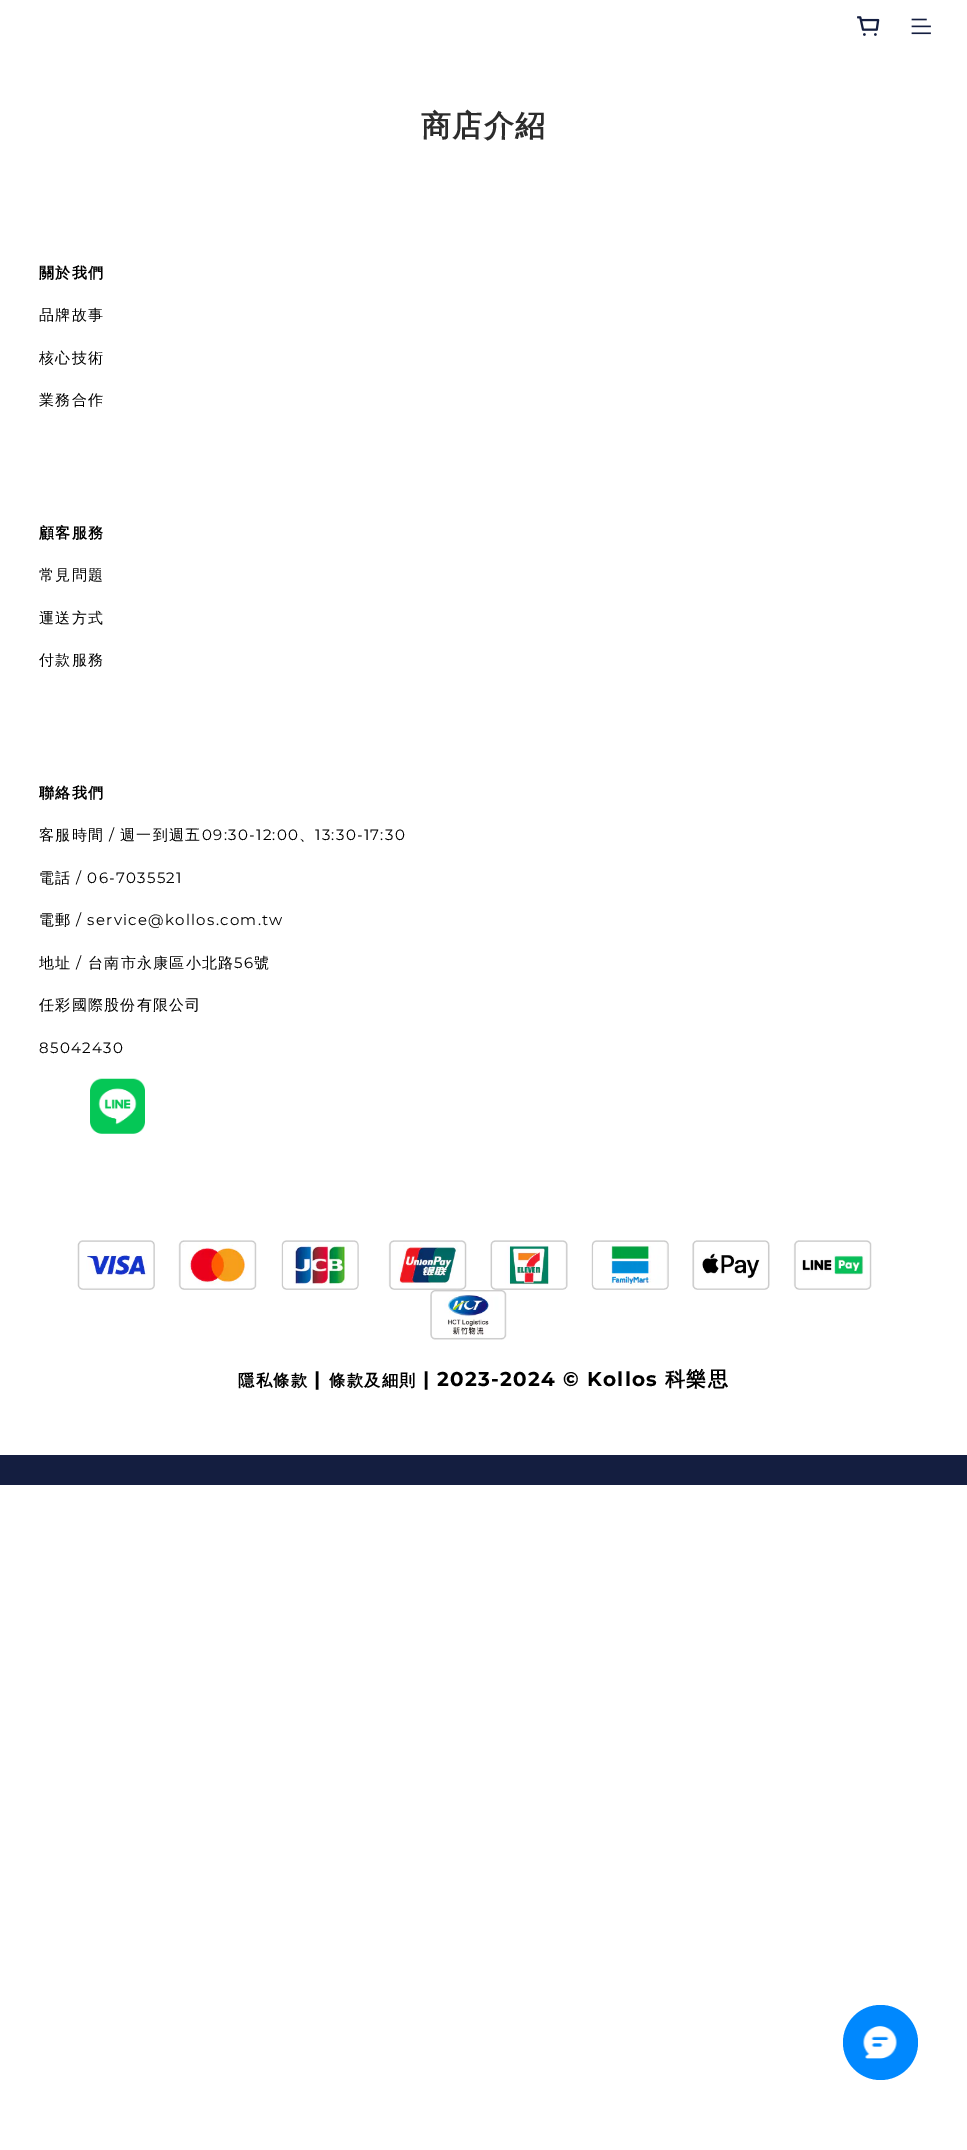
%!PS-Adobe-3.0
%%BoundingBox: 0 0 967 2150
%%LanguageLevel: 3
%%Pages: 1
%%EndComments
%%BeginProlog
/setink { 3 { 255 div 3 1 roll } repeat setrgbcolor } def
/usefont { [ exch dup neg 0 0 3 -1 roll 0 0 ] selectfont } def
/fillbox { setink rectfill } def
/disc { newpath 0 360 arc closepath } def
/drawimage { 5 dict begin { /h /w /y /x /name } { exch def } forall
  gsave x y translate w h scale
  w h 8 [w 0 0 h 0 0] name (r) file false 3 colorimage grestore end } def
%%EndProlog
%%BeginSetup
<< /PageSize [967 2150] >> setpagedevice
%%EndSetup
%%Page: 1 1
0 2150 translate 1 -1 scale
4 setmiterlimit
0 0 967 2150 255 255 255 fillbox
(assets/img1.rgb) 857 16 23 20 drawimage
(assets/img2.rgb) 911 18 20 17 drawimage
/WenQuanYiZenHei-Bold 30 usefont
44 44 44 setink
421 136 moveto 1.25 0 (商店介紹) ashow
/WenQuanYiZenHei-Bold 15 usefont
0 0 0 setink
39 278 moveto 1.25 0 (關於我們) ashow
/WenQuanYiZenHei-Medium 15 usefont
39 320 moveto 1.25 0 (品牌故事) ashow
39 363 moveto 1.25 0 (核心技術) ashow
39 405 moveto 1.25 0 (業務合作) ashow
/WenQuanYiZenHei-Bold 15 usefont
39 538 moveto 1.25 0 (顧客服務) ashow
/WenQuanYiZenHei-Medium 15 usefont
39 580 moveto 1.25 0 (常見問題) ashow
39 623 moveto 1.25 0 (運送方式) ashow
39 665 moveto 1.25 0 (付款服務) ashow
/WenQuanYiZenHei-Bold 15 usefont
39 798 moveto 1.25 0 (聯絡我們) ashow
/WenQuanYiZenHei-Medium 15 usefont
39 840 moveto 1.25 0 (客服時間) ashow
/Montserrat-Regular 15 usefont
109 840 moveto 1.25 0 (/) ashow
/WenQuanYiZenHei-Medium 15 usefont
120 840 moveto 1.25 0 (週一到週五) ashow
/Montserrat-Regular 15 usefont
202 840 moveto 1.25 0 (09:30-12:00) ashow
/WenQuanYiZenHei-Medium 15 usefont
299 840 moveto 1.25 0 (、) ashow
/Montserrat-Regular 15 usefont
315 840 moveto 1.25 0 (13:30-17:30) ashow
/WenQuanYiZenHei-Medium 15 usefont
39 883 moveto 1.25 0 (電話) ashow
/Montserrat-Regular 15 usefont
76 883 moveto 1.25 0 (/ 06-7035521) ashow
/WenQuanYiZenHei-Medium 15 usefont
39 925 moveto 1.25 0 (電郵) ashow
/Montserrat-Regular 15 usefont
76 925 moveto 1.25 0 (/ service@kollos.com.tw) ashow
/WenQuanYiZenHei-Medium 15 usefont
39 968 moveto 1.25 0 (地址) ashow
/Montserrat-Regular 15 usefont
76 968 moveto 1.25 0 (/) ashow
/WenQuanYiZenHei-Medium 15 usefont
88 968 moveto 1.25 0 (台南市永康區小北路) ashow
/Montserrat-Regular 15 usefont
234 968 moveto 1.25 0 (56) ashow
/WenQuanYiZenHei-Medium 15 usefont
254 968 moveto 1.25 0 (號) ashow
39 1010 moveto 1.25 0 (任彩國際股份有限公司) ashow
/Montserrat-Regular 15 usefont
39 1053 moveto 1.25 0 (85042430) ashow
(assets/img3.rgb) 90 1078 55 56 drawimage
(assets/img4.rgb) 77 1240 78 50 drawimage
(assets/img5.rgb) 178 1240 79 50 drawimage
(assets/img6.rgb) 281 1240 78 50 drawimage
(assets/img7.rgb) 388 1240 79 50 drawimage
(assets/img8.rgb) 490 1240 78 50 drawimage
(assets/img9.rgb) 591 1240 78 50 drawimage
(assets/img10.rgb) 692 1240 78 50 drawimage
(assets/img11.rgb) 793 1240 79 50 drawimage
(assets/img12.rgb) 430 1290 77 50 drawimage
/WenQuanYiZenHei-Bold 16.25 usefont
238 1386 moveto 1.25 0 (隱私條款) ashow
/Montserrat-Bold 20 usefont
314 1386 moveto 1.25 0 (|) ashow
/WenQuanYiZenHei-Bold 16.25 usefont
329 1386 moveto 1.25 0 (條款及細則) ashow
/Montserrat-Bold 20 usefont
423 1386 moveto 1.25 0 (| 2023-2024 © Kollos) ashow
/WenQuanYiZenHei-Bold 20 usefont
665 1386 moveto 1.25 0 (科樂思) ashow
0 1455 967 30 20 30 64 fillbox
0 136 254 setink
880.5 2042.5 37.5 disc fill
(assets/img13.rgb) 863 2026 34 33 drawimage
showpage
%%EOF
